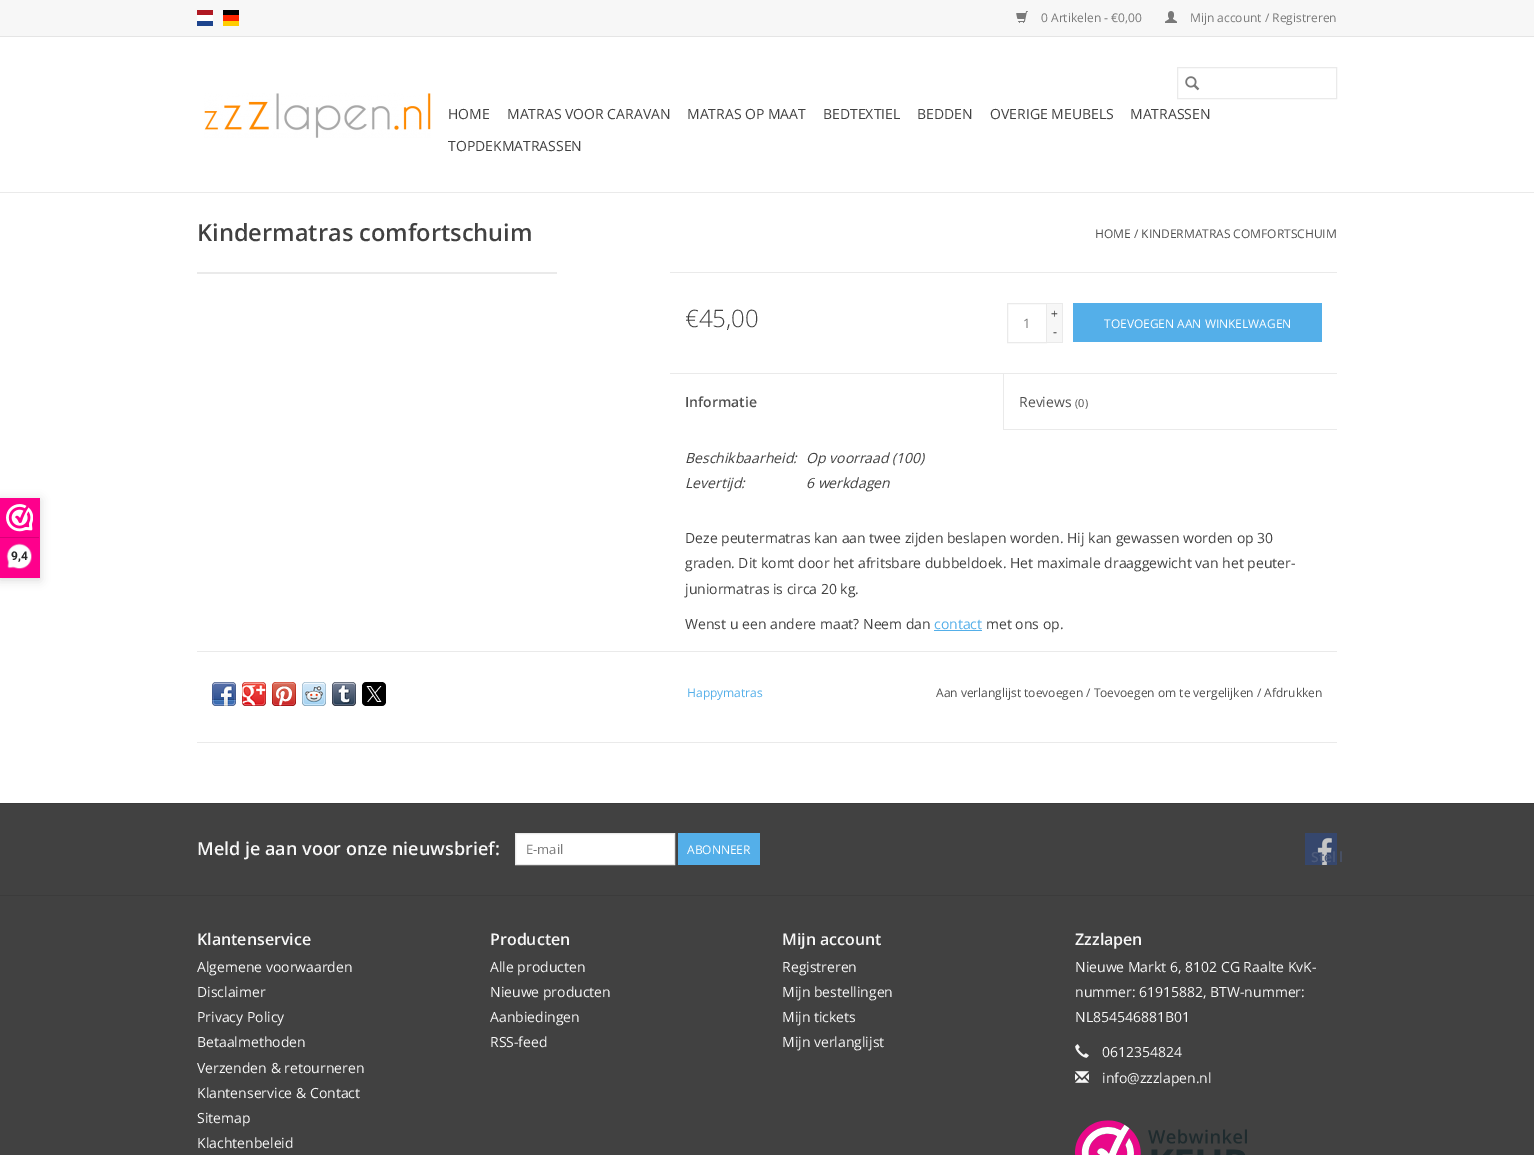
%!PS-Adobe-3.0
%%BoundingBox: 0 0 1534 1155
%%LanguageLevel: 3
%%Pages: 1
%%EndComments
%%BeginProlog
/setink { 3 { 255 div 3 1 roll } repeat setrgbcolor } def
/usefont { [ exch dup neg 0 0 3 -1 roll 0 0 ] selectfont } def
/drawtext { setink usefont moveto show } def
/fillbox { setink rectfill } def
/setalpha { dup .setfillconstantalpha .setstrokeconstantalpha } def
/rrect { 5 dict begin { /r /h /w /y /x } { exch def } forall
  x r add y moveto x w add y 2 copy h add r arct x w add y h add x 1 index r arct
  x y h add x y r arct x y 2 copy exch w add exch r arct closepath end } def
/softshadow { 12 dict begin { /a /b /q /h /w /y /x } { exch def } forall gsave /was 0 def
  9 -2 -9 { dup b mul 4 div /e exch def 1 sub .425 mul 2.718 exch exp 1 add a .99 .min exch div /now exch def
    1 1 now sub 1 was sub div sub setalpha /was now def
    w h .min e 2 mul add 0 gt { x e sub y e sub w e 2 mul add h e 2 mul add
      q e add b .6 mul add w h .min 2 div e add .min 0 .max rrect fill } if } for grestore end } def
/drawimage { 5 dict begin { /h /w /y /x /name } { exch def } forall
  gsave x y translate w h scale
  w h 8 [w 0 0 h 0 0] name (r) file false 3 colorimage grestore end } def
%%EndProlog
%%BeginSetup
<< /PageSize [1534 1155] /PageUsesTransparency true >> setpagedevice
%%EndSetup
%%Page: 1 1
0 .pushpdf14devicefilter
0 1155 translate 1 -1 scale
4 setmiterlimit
0 0 1534 1155 255 255 255 fillbox
0 192 1534 1 234 234 234 fillbox
0 0 1534 36 247 247 247 fillbox
0 36 1534 1 229 229 229 fillbox
(assets/img1.rgb) 197 10 16 16 drawimage
(assets/img2.rgb) 223 10 16 16 drawimage
(assets/img3.rgb) 1016 11 12 12 drawimage
(0 Artikelen - €0,00) 1041 22 /OpenSans-Regular 12 121 121 121 drawtext
(assets/img4.rgb) 1165 11 12 12 drawimage
(Mijn account / Registreren) 1190 22 /OpenSans-Regular 12 121 121 121 drawtext
(assets/img5.rgb) 204 93 227 45 drawimage
234 234 234 setink
1177.5 67.5 159 31 rectstroke
(assets/img6.rgb) 1185 76 15 15 drawimage
(HOME) 448 119 /OpenSans-Regular 14 65 65 65 drawtext
(MATRAS VOOR CARAVAN) 507 119 /OpenSans-Regular 14 65 65 65 drawtext
(MATRAS OP MAAT) 687 119 /OpenSans-Regular 14 65 65 65 drawtext
(BEDTEXTIEL) 823 119 /OpenSans-Regular 14 65 65 65 drawtext
(BEDDEN) 917 119 /OpenSans-Regular 14 65 65 65 drawtext
(OVERIGE MEUBELS) 990 119 /OpenSans-Regular 14 65 65 65 drawtext
(MATRASSEN) 1130 119 /OpenSans-Regular 14 65 65 65 drawtext
(TOPDEKMATRASSEN) 448 151 /OpenSans-Regular 14 65 65 65 drawtext
0 0 0 setink
0 500 40 80 0 5 0.15 softshadow
0 498 40 80 254 0 140 fillbox
(assets/img7.rgb) 6 504 27 28 drawimage
0 537 39 1 216 0 119 fillbox
(assets/img8.rgb) 6 543 26 26 drawimage
(9,4) 11 560 /Roboto-Bold 12 39 38 38 drawtext
(Kindermatras comfortschuim) 197 241 /OpenSans-SemiBold 23.6 65 65 65 drawtext
(HOME / KINDERMATRAS COMFORTSCHUIM) 1095 238 /OpenSans-Regular 12 80 80 80 drawtext
197 272 360 2 234 234 234 fillbox
670 272 667 1 234 234 234 fillbox
(€45,00) 685 327 /OpenSans-Light 24 65 65 65 drawtext
234 234 234 setink
1007.5 303.5 39 39 rectstroke
(1) 1023 328 /OpenSans-Regular 13 121 121 121 drawtext
1047 304 15 38 247 247 247 fillbox
1047 303 16 1 234 234 234 fillbox
1062 303 1 40 234 234 234 fillbox
1047 342 16 1 234 234 234 fillbox
(+) 1051 318 /OpenSans-Regular 12 65 65 65 drawtext
(-) 1053 336 /OpenSans-Regular 12 65 65 65 drawtext
1073 303 249 39 84 175 233 fillbox
(TOEVOEGEN AAN WINKELWAGEN) 1104 328 /OpenSans-Regular 12 255 255 255 drawtext
670 373 667 1 234 234 234 fillbox
(Informatie) 685 407 /OpenSans-SemiBold 14 80 80 80 drawtext
1003 429 334 1 234 234 234 fillbox
1003 374 1 56 234 234 234 fillbox
(Reviews) 1019 407 /OpenSans-Regular 14 80 80 80 drawtext
(\(0\)) 1075 407 /OpenSans-Regular 11 80 80 80 drawtext
(Beschikbaarheid:) 685 463 /OpenSans-Italic 14 65 65 65 drawtext
(Op voorraad \(100\)) 806 463 /OpenSans-Italic 14 65 65 65 drawtext
(Levertijd:) 685 488 /OpenSans-Italic 14 65 65 65 drawtext
(6 werkdagen) 806 488 /OpenSans-Italic 14 65 65 65 drawtext
(Deze peutermatras kan aan twee zijden beslapen worden. Hij kan gewassen worden op 30) 685 543 /OpenSans-Regular 14 65 65 65 drawtext
(graden. Dit komt door het afritsbare dubbeldoek. Het maximale draaggewicht van het peuter-) 685 568 /OpenSans-Regular 14 65 65 65 drawtext
(juniormatras is circa 20 kg.) 685 594 /OpenSans-Regular 14 65 65 65 drawtext
(Wenst u een andere maat? Neem dan) 685 629 /OpenSans-Regular 14 65 65 65 drawtext
(contact) 934 629 /OpenSans-Regular 14 84 175 233 drawtext
934 630 48 1 84 175 233 fillbox
(met ons op.) 986 629 /OpenSans-Regular 14 65 65 65 drawtext
197 651 1140 1 234 234 234 fillbox
197 742 1140 1 234 234 234 fillbox
(assets/img9.rgb) 212 682 24 24 drawimage
(assets/img10.rgb) 242 682 24 24 drawimage
(assets/img11.rgb) 272 682 24 24 drawimage
(assets/img12.rgb) 302 682 24 24 drawimage
(assets/img13.rgb) 332 682 24 24 drawimage
(assets/img14.rgb) 362 682 24 24 drawimage
(Happymatras) 687 697 /OpenSans-Regular 12 84 175 233 drawtext
(Aan verlanglijst toevoegen / Toevoegen om te vergelijken / Afdrukken) 936 697 /OpenSans-Regular 12 80 80 80 drawtext
0 804 1534 351 65 65 65 fillbox
0 803 1534 1 59 59 59 fillbox
(Meld je aan voor onze nieuwsbrief:) 197 855 /OpenSans-SemiBold 18 247 247 247 drawtext
255 255 255 setink
515.5 833.5 moveto 674.5 833.5 lineto 674.5 864.5 lineto 515.5 864.5 lineto closepath gsave fill grestore
233 233 233 setink
stroke
(E-mail) 526 854 /OpenSans-Regular 13 121 121 121 drawtext
678 833 82 32 84 175 233 fillbox
(ABONNEER) 687 854 /OpenSans-Regular 12 255 255 255 drawtext
(assets/img15.rgb) 1305 833 32 32 drawimage
(Stel) 1311 862 /OpenSans-SemiBold 14 77 91 123 drawtext
(l) 1339 862 /OpenSans-SemiBold 14 74 86 112 drawtext
0 895 1534 1 59 59 59 fillbox
(Klantenservice) 197 945 /OpenSans-SemiBold 16 247 247 247 drawtext
(Algemene voorwaarden) 197 972 /OpenSans-Regular 14 247 247 247 drawtext
(Disclaimer) 197 997 /OpenSans-Regular 14 247 247 247 drawtext
(Privacy Policy) 197 1022 /OpenSans-Regular 14 247 247 247 drawtext
(Betaalmethoden) 197 1047 /OpenSans-Regular 14 247 247 247 drawtext
(Verzenden & retourneren) 197 1073 /OpenSans-Regular 14 247 247 247 drawtext
(Klantenservice & Contact) 197 1098 /OpenSans-Regular 14 247 247 247 drawtext
(Sitemap) 197 1123 /OpenSans-Regular 14 247 247 247 drawtext
(Klachtenbeleid) 197 1148 /OpenSans-Regular 14 247 247 247 drawtext
(Producten) 490 945 /OpenSans-SemiBold 16 247 247 247 drawtext
(Alle producten) 490 972 /OpenSans-Regular 14 247 247 247 drawtext
(Nieuwe producten) 490 997 /OpenSans-Regular 14 247 247 247 drawtext
(Aanbiedingen) 490 1022 /OpenSans-Regular 14 247 247 247 drawtext
(RSS-feed) 490 1047 /OpenSans-Regular 14 247 247 247 drawtext
(Mijn account) 782 945 /OpenSans-SemiBold 16 247 247 247 drawtext
(Registreren) 782 972 /OpenSans-Regular 14 247 247 247 drawtext
(Mijn bestellingen) 782 997 /OpenSans-Regular 14 247 247 247 drawtext
(Mijn tickets) 782 1022 /OpenSans-Regular 14 247 247 247 drawtext
(Mijn verlanglijst) 782 1047 /OpenSans-Regular 14 247 247 247 drawtext
(Zzzlapen) 1075 945 /OpenSans-SemiBold 16 247 247 247 drawtext
(Nieuwe Markt 6, 8102 CG Raalte KvK-) 1075 972 /OpenSans-Regular 14 247 247 247 drawtext
(nummer: 61915882, BTW-nummer:) 1075 997 /OpenSans-Regular 14 247 247 247 drawtext
(NL854546881B01) 1075 1022 /OpenSans-Regular 14 247 247 247 drawtext
(assets/img16.rgb) 1075 1044 14 14 drawimage
(0612354824) 1102 1057 /OpenSans-Regular 14 247 247 247 drawtext
(assets/img17.rgb) 1075 1071 14 12 drawimage
(info@zzzlapen.nl) 1102 1083 /OpenSans-Regular 14 247 247 247 drawtext
(assets/img18.rgb) 1075 1120 172 35 drawimage
.poppdf14devicefilter showpage
%%EOF
